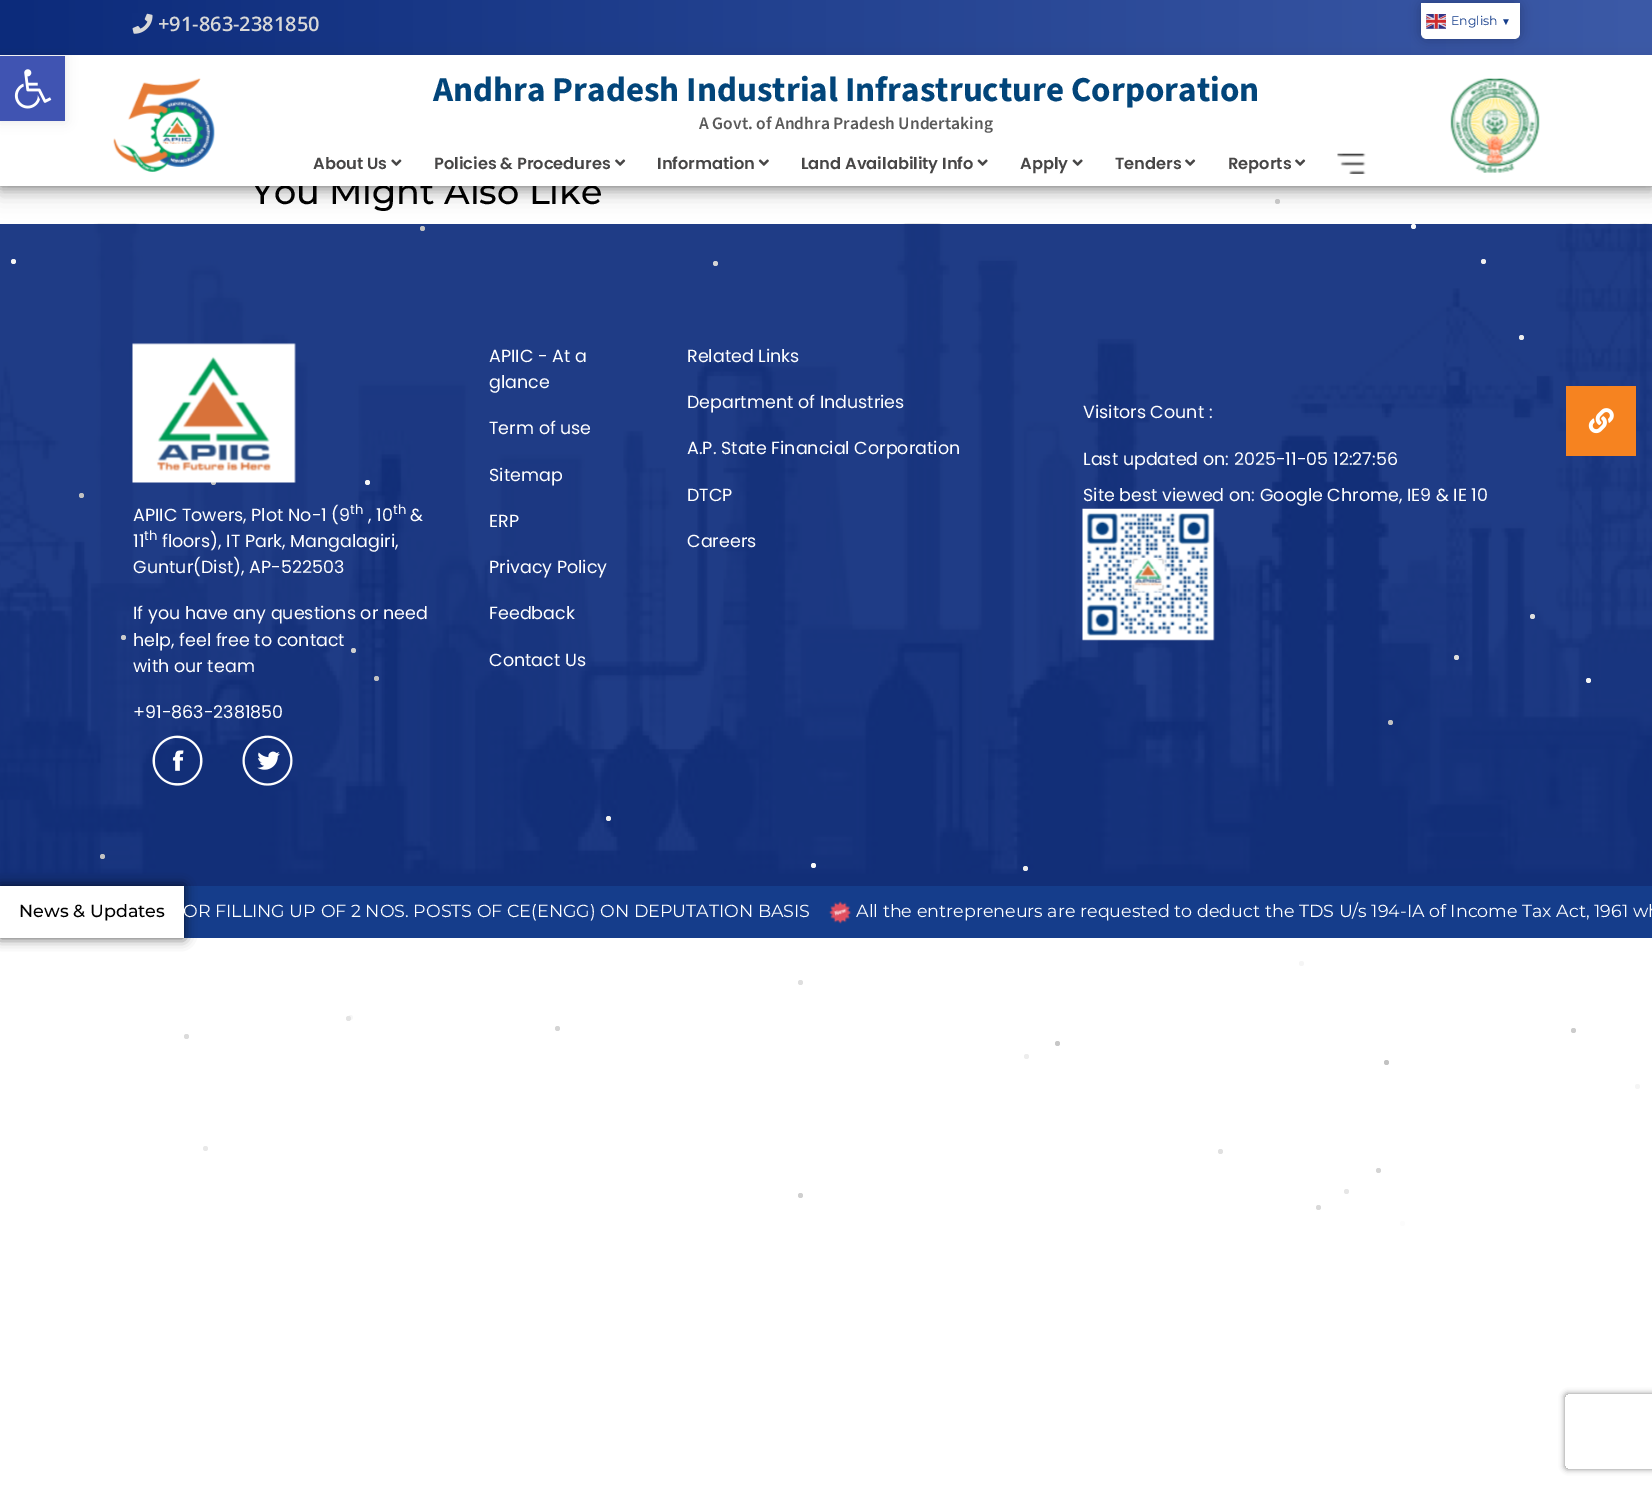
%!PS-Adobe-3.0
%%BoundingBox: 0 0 1652 1486
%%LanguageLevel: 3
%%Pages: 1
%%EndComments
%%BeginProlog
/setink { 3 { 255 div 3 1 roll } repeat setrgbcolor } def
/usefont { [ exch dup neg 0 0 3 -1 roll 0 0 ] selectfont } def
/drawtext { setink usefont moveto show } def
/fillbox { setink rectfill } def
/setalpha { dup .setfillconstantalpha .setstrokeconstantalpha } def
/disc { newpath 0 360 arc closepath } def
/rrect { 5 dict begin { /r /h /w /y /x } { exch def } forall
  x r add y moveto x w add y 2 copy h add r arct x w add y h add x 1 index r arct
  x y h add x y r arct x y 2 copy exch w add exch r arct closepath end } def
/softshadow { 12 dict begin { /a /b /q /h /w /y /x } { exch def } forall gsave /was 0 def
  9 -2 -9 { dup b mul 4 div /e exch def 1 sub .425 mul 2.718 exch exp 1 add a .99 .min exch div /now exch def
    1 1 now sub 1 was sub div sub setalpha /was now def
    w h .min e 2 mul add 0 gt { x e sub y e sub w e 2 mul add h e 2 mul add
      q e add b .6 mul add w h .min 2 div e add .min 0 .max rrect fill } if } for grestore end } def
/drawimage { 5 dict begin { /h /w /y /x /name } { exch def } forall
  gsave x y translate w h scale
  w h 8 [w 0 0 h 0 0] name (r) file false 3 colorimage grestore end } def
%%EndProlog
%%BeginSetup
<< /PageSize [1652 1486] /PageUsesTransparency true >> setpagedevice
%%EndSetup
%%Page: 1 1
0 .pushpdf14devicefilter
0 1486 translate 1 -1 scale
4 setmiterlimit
0 0 1652 1486 255 255 255 fillbox
0 224 1652 554 31 60 134 fillbox
207 207 207 setink
1277.5 201.5 2.5 disc fill
0 0 0 setink
0 0 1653 186 0 6 0.5 softshadow
(You Might Also Like) 251 204 /Montserrat-Medium 35 0 0 0 drawtext
0 55 1652 131 255 255 255 fillbox
gsave 0 0 moveto 1652 0 lineto 1652 55 lineto 0 55 lineto closepath clip newpath
<< /ShadingType 2 /ColorSpace /DeviceRGB /Coords [0 28 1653 27] /Extend [true true] /Function << /FunctionType 2 /Domain [0 1] /C0 [0.047 0.169 0.482] /C1 [0.235 0.353 0.655] /N 1 >> >> shfill grestore
0 0 0 setink
0 56 65 65 0 6 0.1 softshadow
1421 3 99 36 6 6 0.25 softshadow
255 255 255 setink
1421 3 moveto 1520 3 lineto 1520 33 lineto 1520 36.5 1517.5 39 1514 39 curveto 1427 39 lineto 1423.5 39 1421 36.5 1421 33 curveto closepath fill
(assets/img11.rgb) 0 223 1652 663 drawimage
252 252 252 setink
1413.5 226.5 2.5 disc fill
194 194 194 setink
422.5 228.5 2.5 disc fill
gsave
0 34 moveto 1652 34 lineto 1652 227 lineto 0 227 lineto closepath 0 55 moveto 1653 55 lineto 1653 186 lineto 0 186 lineto closepath eoclip newpath
0 0 0 setink
0 65 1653 131 0 10 0.15 softshadow
grestore
0 56 65 65 64 84 178 fillbox
(assets/img1.rgb) 14 69 38 40 drawimage
(assets/img2.rgb) 132 13 21 21 drawimage
(+91-863-2381850) 158 31 /OpenSans-SemiBold 20 216 216 216 drawtext
(assets/img3.rgb) 1426 14 20 15 drawimage
(English) 1451 25 /Montserrat-Regular 12.5 21 61 139 drawtext
(▼) 1501 25 /LiberationSans-Bold 10 21 61 139 drawtext
(assets/img4.rgb) 113 78 102 94 drawimage
(Andhra Pradesh Industrial Infrastructure Corporation) 433 101 /SourceSans3-Bold 35 2 69 122 drawtext
(A Govt. of Andhra Pradesh Undertaking) 699 129 /SourceSans3-SemiBold 17.5 89 89 89 drawtext
(About Us) 313 169 /Poppins-SemiBold 16.25 71 70 70 drawtext
(assets/img5.rgb) 391 159 11 7 drawimage
(Policies & Procedures) 434 169 /Poppins-SemiBold 16.25 71 70 70 drawtext
(assets/img6.rgb) 615 159 11 7 drawimage
(Information) 657 169 /Poppins-SemiBold 16.25 71 70 70 drawtext
(assets/img7.rgb) 758 159 11 7 drawimage
(Land Availability Info) 801 169 /Poppins-SemiBold 16.25 71 70 70 drawtext
(assets/img8.rgb) 977 159 11 7 drawimage
(Apply) 1020 169 /Poppins-SemiBold 16.25 71 70 70 drawtext
(assets/img8.rgb) 1072 159 11 7 drawimage
(Tenders) 1115 169 /Poppins-SemiBold 16.25 71 70 70 drawtext
(assets/img6.rgb) 1185 159 11 7 drawimage
(Reports) 1228 169 /Poppins-SemiBold 16.25 71 70 70 drawtext
(assets/img6.rgb) 1295 159 11 7 drawimage
(assets/img9.rgb) 1337 153 29 21 drawimage
(assets/img10.rgb) 1450 78 90 95 drawimage
196 196 196 setink
213.5 482.5 2.5 disc fill
217 217 217 setink
1318.5 1207.5 2.5 disc fill
194 194 194 setink
81.5 495.5 2.5 disc fill
247 247 247 setink
350.5 1017.5 2.5 disc fill
367.5 482.5 2.5 disc fill
207 207 207 setink
353.5 650.5 2.5 disc fill
204 204 204 setink
123.5 637.5 2.5 disc fill
222 222 222 setink
800.5 982.5 2.5 disc fill
194 194 194 setink
102.5 856.5 2.5 disc fill
212 212 212 setink
557.5 1028.5 2.5 disc fill
224 224 224 setink
1220.5 1151.5 2.5 disc fill
222 222 222 setink
1532.5 616.5 2.5 disc fill
194 194 194 setink
376.5 678.5 2.5 disc fill
245 245 245 setink
13.5 261.5 2.5 disc fill
207 207 207 setink
800.5 1195.5 2.5 disc fill
245 245 245 setink
1588.5 680.5 2.5 disc fill
240 240 240 setink
608.5 818.5 2.5 disc fill
219 219 219 setink
186.5 1036.5 2.5 disc fill
237 237 237 setink
1521.5 337.5 2.5 disc fill
222 222 222 setink
1456.5 657.5 2.5 disc fill
194 194 194 setink
1390.5 722.5 2.5 disc fill
227 227 227 setink
348.5 1018.5 2.5 disc fill
252 252 252 setink
813.5 865.5 2.5 disc fill
230 230 230 setink
1346.5 1191.5 2.5 disc fill
212 212 212 setink
1378.5 1170.5 2.5 disc fill
194 194 194 setink
1386.5 1062.5 2.5 disc fill
232 232 232 setink
205.5 1148.5 2.5 disc fill
237 237 237 setink
1025.5 868.5 2.5 disc fill
1026.5 1056.5 2.5 disc fill
240 240 240 setink
1483.5 261.5 2.5 disc fill
199 199 199 setink
1057.5 1043.5 2.5 disc fill
204 204 204 setink
1573.5 1030.5 2.5 disc fill
212 212 212 setink
715.5 263.5 2.5 disc fill
245 245 245 setink
1301.5 963.5 2.5 disc fill
1637.5 1086.5 2.5 disc fill
252 252 252 setink
1402.5 1223.5 2.5 disc fill
(APIIC - At a) 489 362 /Poppins-Regular 17.5 255 255 255 drawtext
(glance) 489 388 /Poppins-Regular 17.5 255 255 255 drawtext
(Term of use) 489 434 /Poppins-Regular 17.5 255 255 255 drawtext
(Sitemap) 489 481 /Poppins-Regular 17.5 255 255 255 drawtext
(ERP) 489 527 /Poppins-Regular 17.5 255 255 255 drawtext
(Privacy Policy) 489 573 /Poppins-Regular 17.5 255 255 255 drawtext
(Feedback) 489 619 /Poppins-Regular 17.5 255 255 255 drawtext
(Contact Us) 489 666 /Poppins-Regular 17.5 255 255 255 drawtext
(Related Links) 687 362 /Poppins-Regular 17.5 255 255 255 drawtext
(Department of Industries) 687 408 /Poppins-Regular 17.5 255 255 255 drawtext
(A.P. State Financial Corporation) 687 454 /Poppins-Regular 17.5 255 255 255 drawtext
(DTCP) 687 501 /Poppins-Regular 17.5 255 255 255 drawtext
(Careers) 687 547 /Poppins-Regular 17.5 255 255 255 drawtext
(Visitors Count :) 1083 418 /Poppins-Regular 17.5 255 255 255 drawtext
(Last updated on: 2025-11-05 12:27:56) 1083 465 /Poppins-Regular 17.5 255 255 255 drawtext
(Site best viewed on: Google Chrome, IE9 & IE 10) 1083 501 /Poppins-Regular 17.5 255 255 255 drawtext
(assets/img12.rgb) 1082 508 133 133 drawimage
(assets/img13.rgb) 132 343 164 140 drawimage
(APIIC Towers, Plot No-1 \(9) 133 521 /Poppins-Regular 17.5 255 255 255 drawtext
(th) 350 514 /Poppins-Regular 13 255 255 255 drawtext
(, 10) 368 521 /Poppins-Regular 17.5 255 255 255 drawtext
(th) 393 514 /Poppins-Regular 13 255 255 255 drawtext
(&) 410 521 /Poppins-Regular 17.5 255 255 255 drawtext
(11) 133 547 /Poppins-Regular 17.5 255 255 255 drawtext
(th) 144 540 /Poppins-Regular 13 255 255 255 drawtext
(floors\), IT Park, Mangalagiri,) 162 547 /Poppins-Regular 17.5 255 255 255 drawtext
(Guntur\(Dist\), AP-522503) 133 573 /Poppins-Regular 17.5 255 255 255 drawtext
(If you have any questions or need) 133 619 /Poppins-Regular 17.5 255 255 255 drawtext
(help, feel free to contact) 133 646 /Poppins-Regular 17.5 255 255 255 drawtext
(with our team) 133 672 /Poppins-Regular 17.5 255 255 255 drawtext
(+91-863-2381850) 133 718 /Poppins-Regular 17.5 255 255 255 drawtext
(assets/img14.rgb) 152 735 51 51 drawimage
(assets/img15.rgb) 242 735 51 51 drawimage
1566 386 70 70 246 131 32 fillbox
(assets/img16.rgb) 1588 408 26 26 drawimage
184 886 1468 52 21 61 139 fillbox
0 0 0 setink
0 886 184 52 0 6 0.7 softshadow
0 886 184 52 255 255 255 fillbox
(News & Updates) 19 917 /Montserrat-Medium 17.5 0 0 0 drawtext
(OR FILLING UP OF 2 NOS. POSTS OF CE\(ENGG\) ON DEPUTATION BASIS) 183 917 /Montserrat-Regular 17.5 255 255 255 drawtext
(assets/img17.rgb) 828 901 24 23 drawimage
(All the entrepreneurs are requested to deduct the TDS U/s 194-IA of Income Tax Act, 1961 wh) 856 917 /Montserrat-Regular 17.5 255 255 255 drawtext
gsave
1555 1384 moveto 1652 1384 lineto 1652 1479 lineto 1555 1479 lineto closepath 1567.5 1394 moveto 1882.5 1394 lineto 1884 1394 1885 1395 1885 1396.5 curveto 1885 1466.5 lineto 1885 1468 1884 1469 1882.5 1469 curveto 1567.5 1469 lineto 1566 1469 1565 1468 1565 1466.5 curveto 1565 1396.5 lineto 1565 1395 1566 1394 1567.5 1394 curveto closepath eoclip newpath
128 128 128 setink
1565 1394 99 75 2.5 3 1 softshadow
grestore
.poppdf14devicefilter showpage
%%EOF
